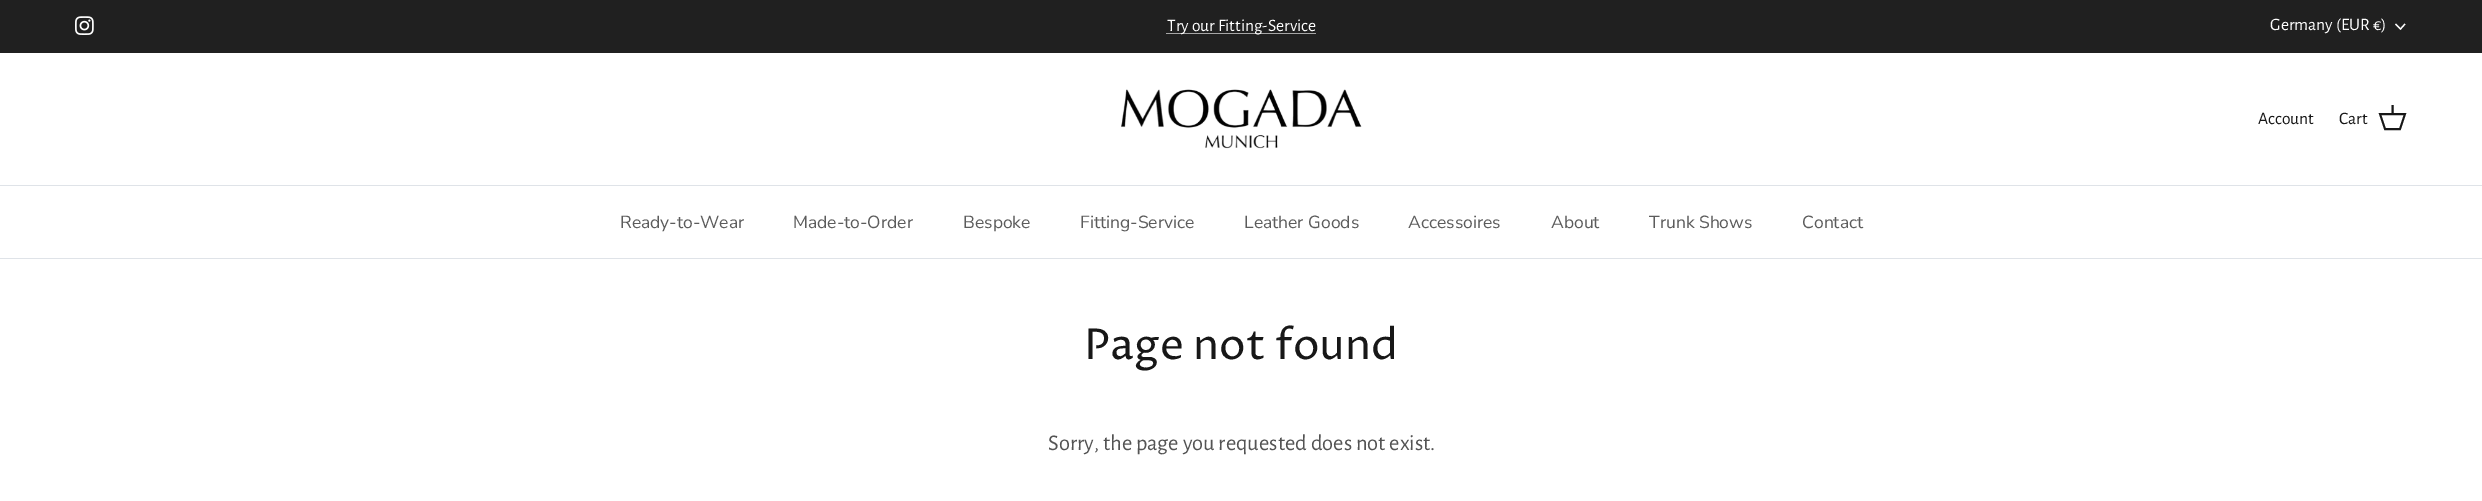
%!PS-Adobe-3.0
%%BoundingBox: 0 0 2482 501
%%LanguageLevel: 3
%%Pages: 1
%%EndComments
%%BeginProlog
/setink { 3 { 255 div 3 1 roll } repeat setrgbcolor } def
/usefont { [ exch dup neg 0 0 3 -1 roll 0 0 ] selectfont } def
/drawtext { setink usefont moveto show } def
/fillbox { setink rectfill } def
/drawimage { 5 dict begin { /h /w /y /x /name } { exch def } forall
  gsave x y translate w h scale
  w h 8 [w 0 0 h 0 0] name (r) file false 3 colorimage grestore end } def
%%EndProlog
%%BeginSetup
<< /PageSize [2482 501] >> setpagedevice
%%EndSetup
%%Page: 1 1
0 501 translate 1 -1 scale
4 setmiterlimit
0 0 2482 501 255 255 255 fillbox
0 0 2482 53 32 32 32 fillbox
(assets/img1.rgb) 75 16 19 19 drawimage
1166 33 150 1 166 166 166 fillbox
(Try our Fitting-Service) 1167 31 /AlegreyaSans-Regular 17.5 255 255 255 drawtext
(Germany \(EUR €\)) 2270 30 /AlegreyaSans-Regular 17.5 255 255 255 drawtext
1.2 setlinewidth
2405 24 moveto 2400.5 29 lineto 2395.5 24 lineto stroke
0 185 2482 1 223 227 232 fillbox
(assets/img2.rgb) 1121 89 241 60 drawimage
(Account) 2258 124 /AlegreyaSans-Regular 17.5 23 23 23 drawtext
(Cart) 2339 124 /AlegreyaSans-Regular 17.5 23 23 23 drawtext
1.9 setlinewidth
2380 114 moveto 2405 114 lineto 2400 129 lineto 2385 129 lineto closepath stroke
2 setlinecap
2392.5 114 moveto 2392.5 106 lineto stroke
0 258 2482 1 223 227 232 fillbox
(Ready-to-Wear) 620 228 /NunitoSans-Regular 17.5 92 92 92 drawtext
(Made-to-Order) 793 228 /NunitoSans-Regular 17.5 92 92 92 drawtext
(Bespoke) 963 228 /NunitoSans-Regular 17.5 92 92 92 drawtext
(Fitting-Service) 1080 228 /NunitoSans-Regular 17.5 92 92 92 drawtext
(Leather Goods) 1244 228 /NunitoSans-Regular 17.5 92 92 92 drawtext
(Accessoires) 1408 228 /NunitoSans-Regular 17.5 92 92 92 drawtext
(About) 1551 228 /NunitoSans-Regular 17.5 92 92 92 drawtext
(Trunk Shows) 1649 228 /NunitoSans-Regular 17.5 92 92 92 drawtext
(Contact) 1802 228 /NunitoSans-Regular 17.5 92 92 92 drawtext
(Page not found) 1084 359 /ProzaLibre-Regular 42.5 23 23 23 drawtext
(Sorry, the page you requested does not exist.) 1048 450 /AlegreyaSans-Regular 22.5 84 84 84 drawtext
showpage
%%EOF
